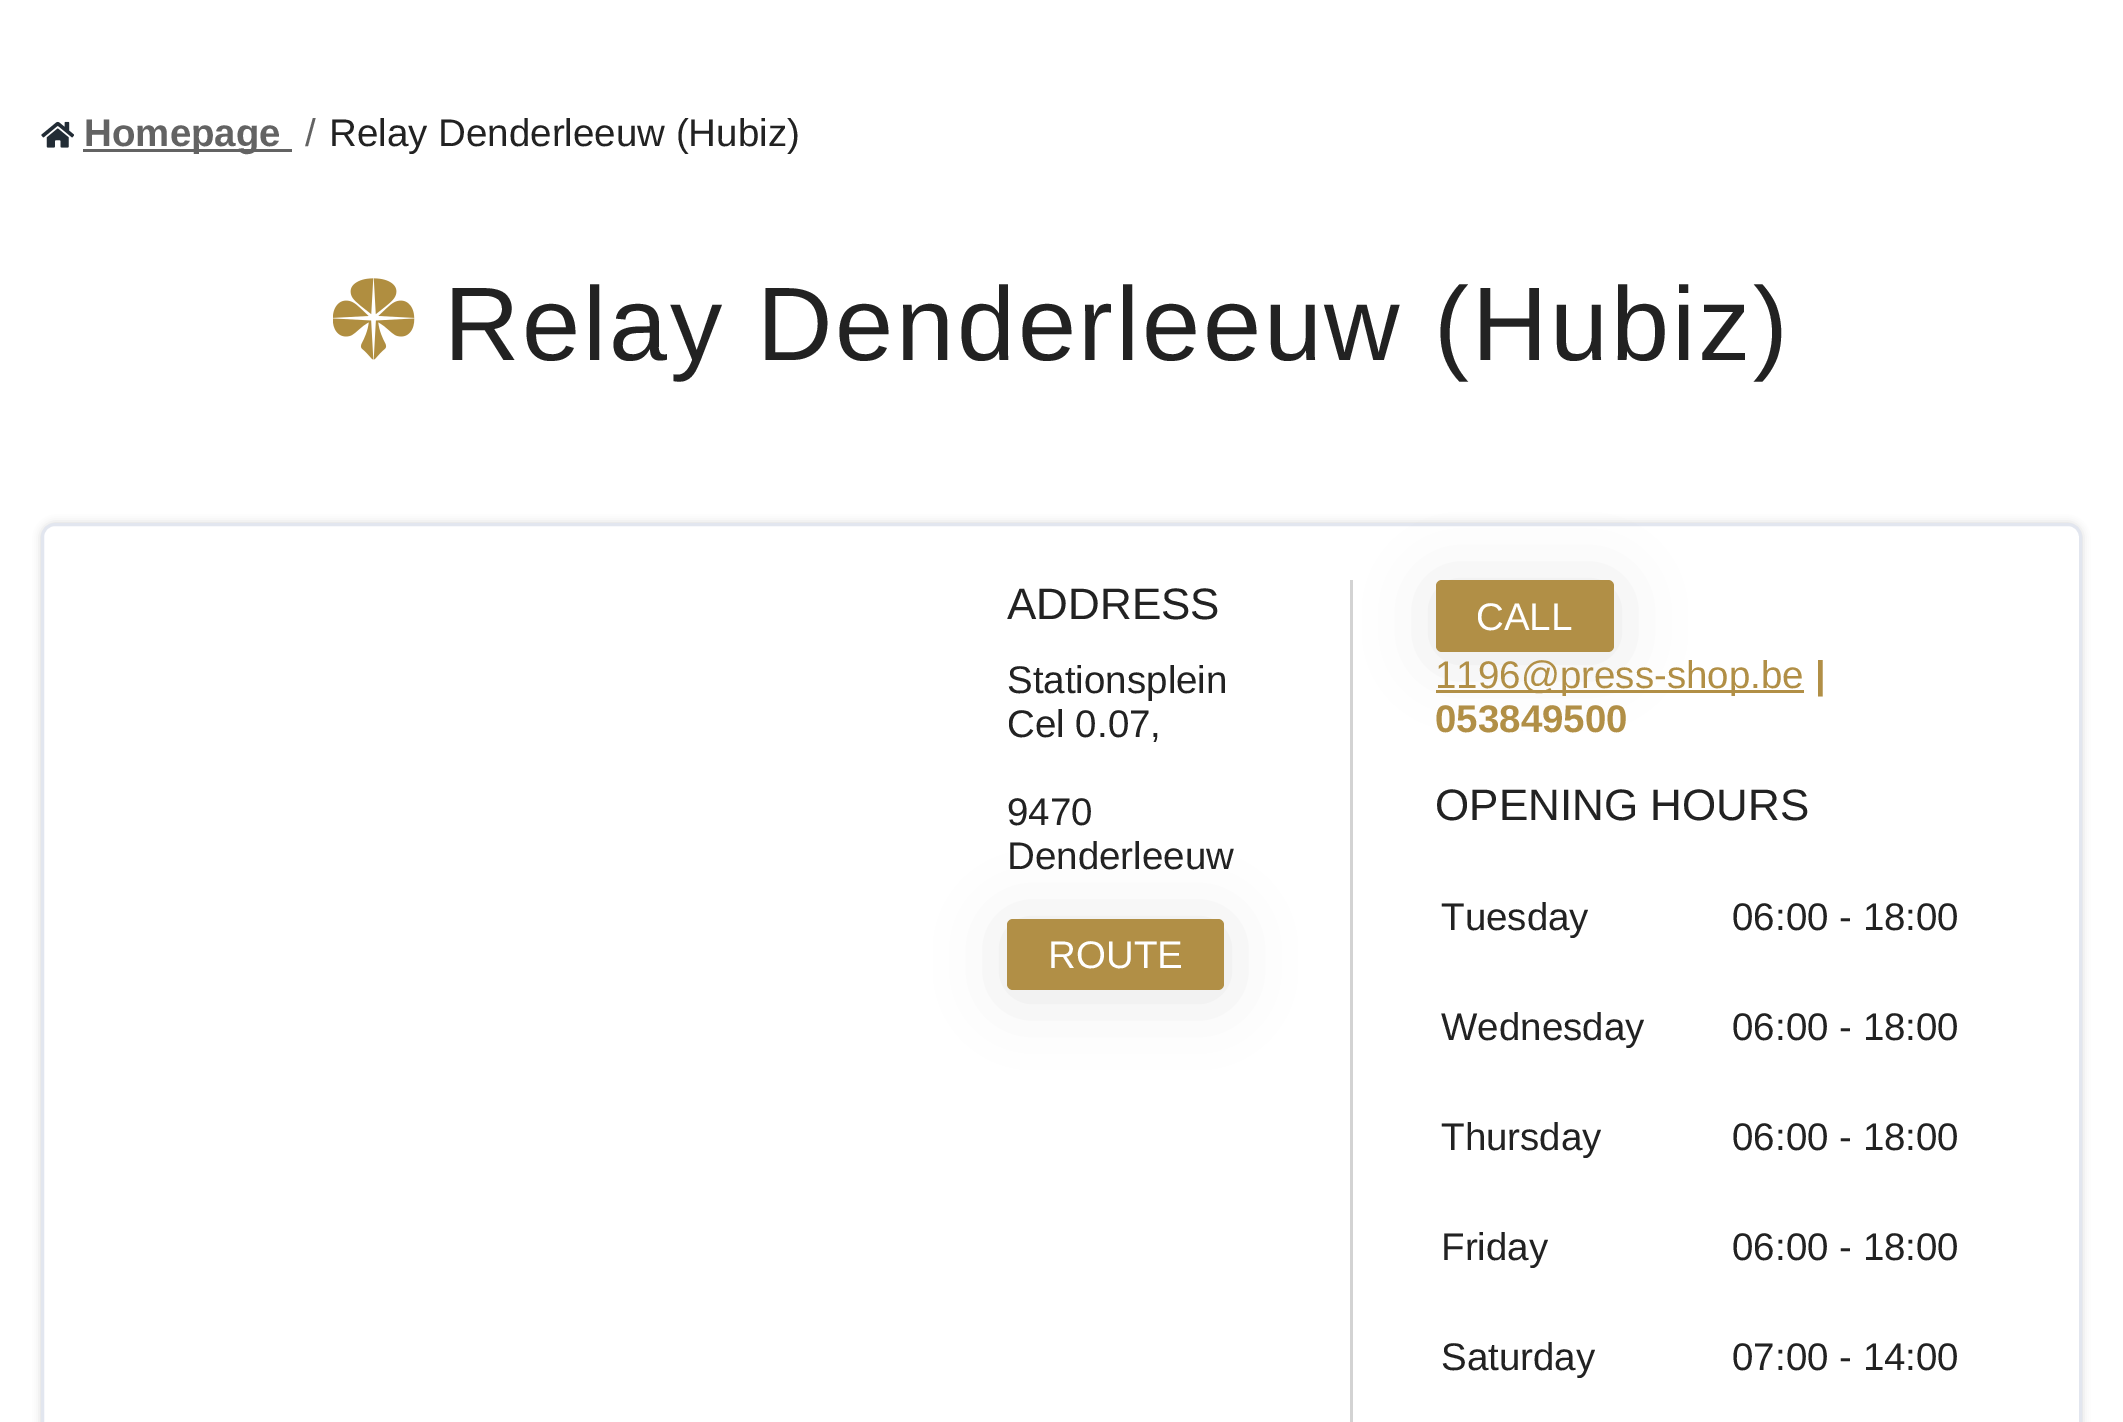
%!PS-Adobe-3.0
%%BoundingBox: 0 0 2123 1422
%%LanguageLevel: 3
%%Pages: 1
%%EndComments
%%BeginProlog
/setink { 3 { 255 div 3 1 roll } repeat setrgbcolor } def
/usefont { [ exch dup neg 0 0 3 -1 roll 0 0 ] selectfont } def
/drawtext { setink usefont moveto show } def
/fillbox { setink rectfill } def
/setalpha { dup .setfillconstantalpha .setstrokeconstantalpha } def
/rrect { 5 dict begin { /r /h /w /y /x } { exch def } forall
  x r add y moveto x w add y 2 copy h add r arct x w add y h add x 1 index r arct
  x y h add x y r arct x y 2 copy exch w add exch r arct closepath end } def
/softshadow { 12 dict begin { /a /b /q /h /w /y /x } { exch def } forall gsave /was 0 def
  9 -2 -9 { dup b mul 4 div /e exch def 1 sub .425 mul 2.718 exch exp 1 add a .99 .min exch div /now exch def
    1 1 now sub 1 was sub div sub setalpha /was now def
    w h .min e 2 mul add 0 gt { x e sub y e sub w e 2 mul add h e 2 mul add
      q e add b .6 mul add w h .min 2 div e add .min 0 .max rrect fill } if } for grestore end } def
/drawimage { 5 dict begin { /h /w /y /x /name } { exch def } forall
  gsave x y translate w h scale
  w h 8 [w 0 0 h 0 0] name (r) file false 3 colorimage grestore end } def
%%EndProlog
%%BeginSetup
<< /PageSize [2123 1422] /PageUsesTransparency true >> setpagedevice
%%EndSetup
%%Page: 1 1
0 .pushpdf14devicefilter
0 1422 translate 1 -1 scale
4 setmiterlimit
0 0 2123 1422 255 255 255 fillbox
(assets/img1.rgb) 41 121 33 27 drawimage
83 149 209 3 99 99 99 fillbox
(Homepage) 84 146 /LiberationSans-Bold 38.5 99 99 99 drawtext
(/) 305 146 /LiberationSans-Regular 38.5 99 99 99 drawtext
(Relay Denderleeuw \(Hubiz\)) 329 146 /LiberationSans-Regular 38.5 34 34 34 drawtext
(assets/img2.rgb) 333 278 82 82 drawimage
/LiberationSans-Regular 104.5 usefont
444 360 moveto 2.75 0 (Relay Denderleeuw \(Hubiz\)) ashow
54 54 54 setink
41 523 2041 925 14 4 0.2 softshadow
255 255 255 setink
42.5 524.5 2038 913 12.5 rrect gsave fill grestore
226 230 239 setink
3 setlinewidth
stroke
(ADDRESS) 1007 619 /LiberationSans-Regular 44 34 34 34 drawtext
(Stationsplein) 1007 693 /LiberationSans-Regular 38.5 34 34 34 drawtext
(Cel 0.07,) 1007 737 /LiberationSans-Regular 38.5 34 34 34 drawtext
(9470) 1007 825 /LiberationSans-Regular 38.5 34 34 34 drawtext
(Denderleeuw) 1007 869 /LiberationSans-Regular 38.5 34 34 34 drawtext
0 0 0 setink
1007 924 217 72 6 33 0.1 softshadow
177 143 70 setink
1007 919 217 71 6 rrect fill
(ROUTE) 1048 968 /LiberationSans-Regular 38.5 255 255 255 drawtext
1350 580 3 842 211 211 211 fillbox
0 0 0 setink
1436 586 178 71 6 33 0.1 softshadow
177 143 70 setink
1436 580 178 72 6 rrect fill
(CALL) 1476 630 /LiberationSans-Regular 38.5 255 255 255 drawtext
1436 690 368 3 177 143 70 fillbox
(1196@press-shop.be) 1435 688 /LiberationSans-Regular 38.5 177 143 70 drawtext
(|) 1815 688 /LiberationSans-Bold 38.5 177 143 70 drawtext
(053849500) 1435 732 /LiberationSans-Bold 38.5 177 143 70 drawtext
(OPENING HOURS) 1435 820 /LiberationSans-Regular 44 34 34 34 drawtext
(Tuesday) 1441 930 /LiberationSans-Regular 38.5 34 34 34 drawtext
(06:00 - 18:00) 1732 930 /LiberationSans-Regular 38.5 34 34 34 drawtext
(Wednesday) 1441 1040 /LiberationSans-Regular 38.5 34 34 34 drawtext
(06:00 - 18:00) 1732 1040 /LiberationSans-Regular 38.5 34 34 34 drawtext
(Thursday) 1441 1150 /LiberationSans-Regular 38.5 34 34 34 drawtext
(06:00 - 18:00) 1732 1150 /LiberationSans-Regular 38.5 34 34 34 drawtext
(Friday) 1441 1260 /LiberationSans-Regular 38.5 34 34 34 drawtext
(06:00 - 18:00) 1732 1260 /LiberationSans-Regular 38.5 34 34 34 drawtext
(Saturday) 1441 1370 /LiberationSans-Regular 38.5 34 34 34 drawtext
(07:00 - 14:00) 1732 1370 /LiberationSans-Regular 38.5 34 34 34 drawtext
.poppdf14devicefilter showpage
%%EOF
